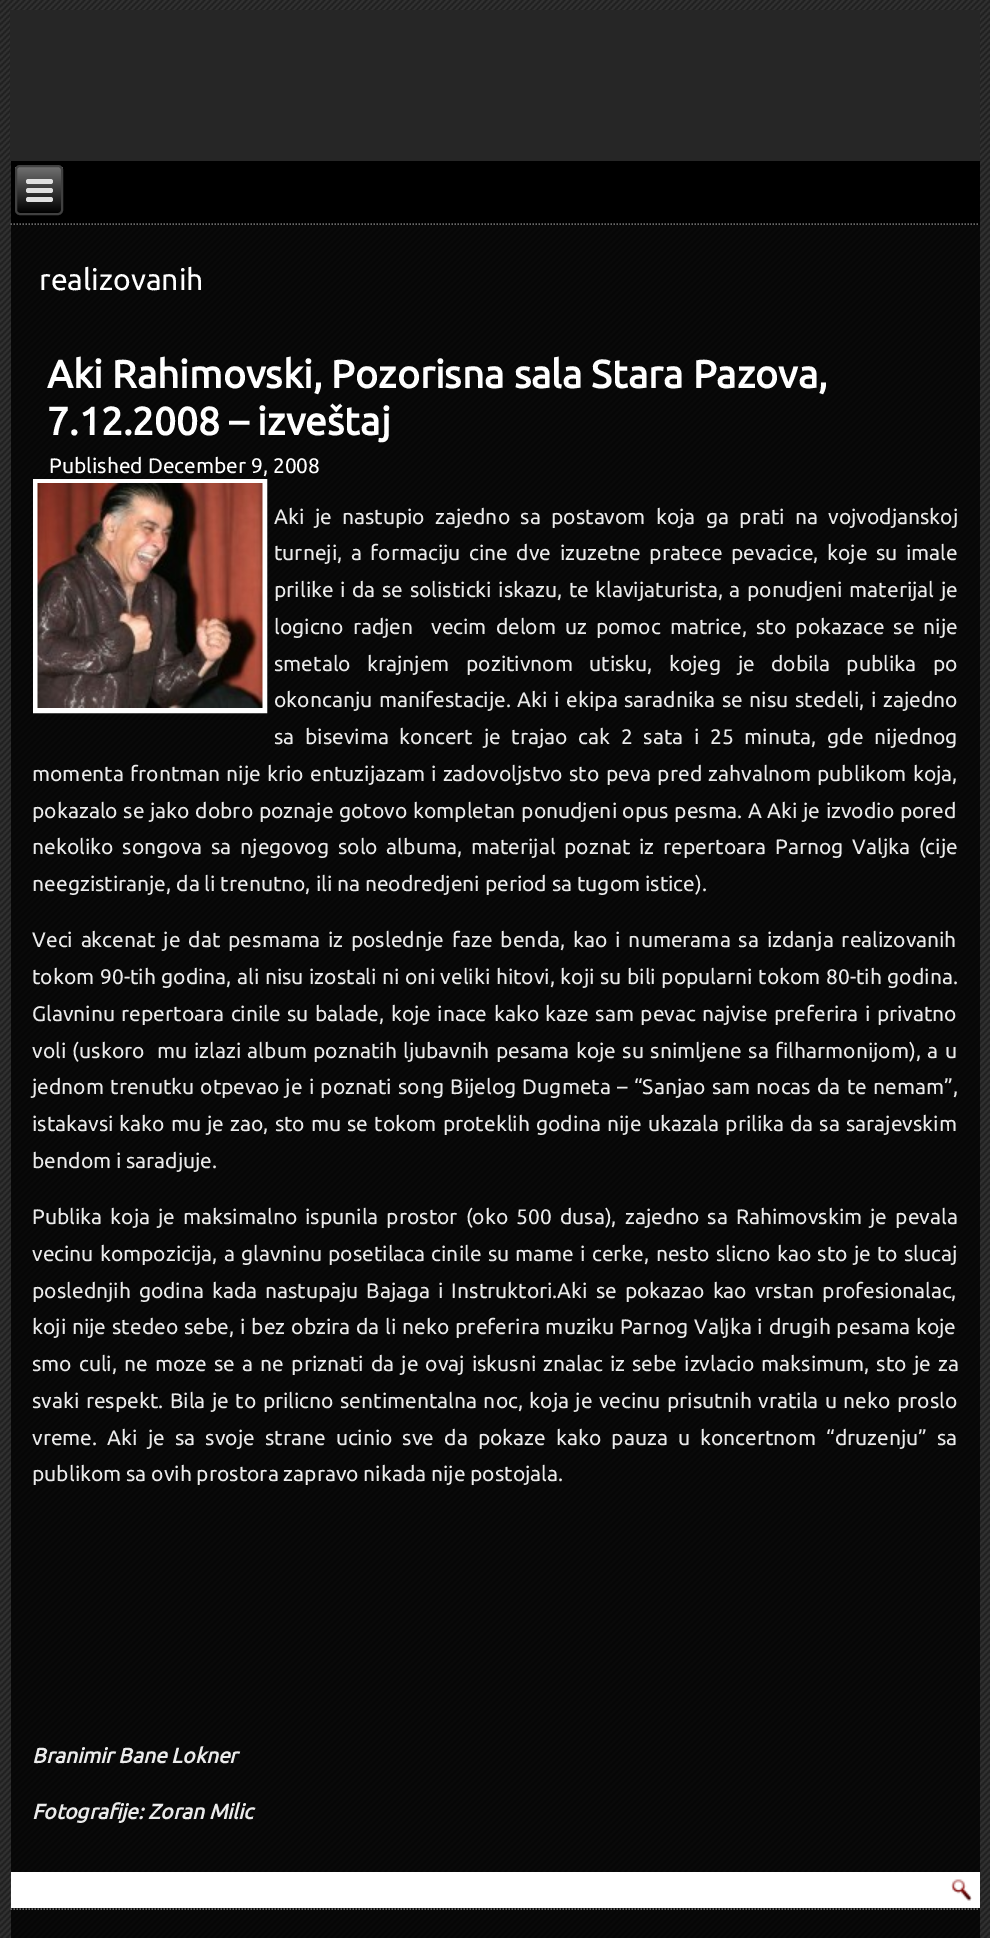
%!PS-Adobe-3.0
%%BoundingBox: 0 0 990 1938
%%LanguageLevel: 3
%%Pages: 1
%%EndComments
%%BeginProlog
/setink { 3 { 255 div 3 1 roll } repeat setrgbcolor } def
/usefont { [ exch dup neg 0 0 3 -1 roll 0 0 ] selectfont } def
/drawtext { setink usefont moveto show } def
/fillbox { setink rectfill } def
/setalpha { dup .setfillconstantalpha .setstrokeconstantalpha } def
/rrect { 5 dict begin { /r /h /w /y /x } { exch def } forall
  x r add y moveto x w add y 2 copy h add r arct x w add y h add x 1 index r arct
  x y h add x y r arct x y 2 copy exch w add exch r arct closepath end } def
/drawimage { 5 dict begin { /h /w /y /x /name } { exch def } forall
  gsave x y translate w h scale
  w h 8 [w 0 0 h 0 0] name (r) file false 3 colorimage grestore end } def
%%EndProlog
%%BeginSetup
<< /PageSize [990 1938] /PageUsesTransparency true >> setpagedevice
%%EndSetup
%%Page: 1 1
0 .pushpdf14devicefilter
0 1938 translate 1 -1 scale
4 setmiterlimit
0 0 990 1938 38 38 38 fillbox
(assets/img1.rgb) 0 0 990 1938 drawimage
0.8 setalpha
11 225 969 1713 0 0 0 fillbox
1 setalpha
10 10 970 151 38 38 38 fillbox
11 161 969 64 0 0 0 fillbox
105 105 105 setink
1.5 setlinewidth
[1.5 1.5] 0 setdash
10.5 224 moveto 979.5 224 lineto stroke
gsave
15 165 48 50 5 rrect clip newpath
gsave 15 167 moveto 63 167 lineto 63 213 lineto 15 213 lineto closepath clip newpath
<< /ShadingType 2 /ColorSpace /DeviceRGB /Coords [39 167 39 213] /Extend [true true] /Function << /FunctionType 2 /Domain [0 1] /C0 [0.439 0.439 0.439] /C1 [0 0 0] /N 1 >> >> shfill grestore
grestore
64 64 64 setink
2 setlinewidth
[] 0 setdash
16 166 46 48 4 rrect stroke
224 224 224 setink
26 179 27 5 2.5 rrect fill
26 188 27 5 2.5 rrect fill
26 197 27 5 2.5 rrect fill
(realizovanih) 39 290 /Ubuntu-Regular 30 255 255 255 drawtext
(Aki Rahimovski, Pozorisna sala Stara Pazova,) 47 388 /Ubuntu-Bold 39 255 255 255 drawtext
(7.12.2008 – izveštaj) 47 435 /Ubuntu-Bold 39 255 255 255 drawtext
(Published December 9, 2008) 49 473 /Ubuntu-Regular 21 255 255 255 drawtext
5 setlinewidth
35.5 481.5 229 229 rectstroke
(assets/img2.rgb) 37 483 226 225 drawimage
235 235 235 setink
274 524 moveto 5.5 0 32 (Aki je nastupio zajedno sa postavom koja ga prati na vojvodjanskoj) widthshow
274 560 moveto 3.75 0 32 (turneji, a formaciju cine dve izuzetne pratece pevacice, koje su imale) widthshow
274 597 moveto 1.75 0 32 (prilike i da se solisticki iskazu, te klavijaturista, a ponudjeni materijal je) widthshow
274 634 moveto 4.1 0 32 (logicno radjen  vecim delom uz pomoc matrice, sto pokazace se nije) widthshow
274 671 moveto 11.5 0 32 (smetalo krajnjem pozitivnom utisku, kojeg je dobila publika po) widthshow
274 707 moveto 1.75 0 32 (okoncanju manifestacije. Aki i ekipa saradnika se nisu stedeli, i zajedno) widthshow
274 744 moveto 5.9 0 32 (sa bisevima koncert je trajao cak 2 sata i 25 minuta, gde nijednog) widthshow
32 781 moveto 1.4 0 32 (momenta frontman nije krio entuzijazam i zadovoljstvo sto peva pred zahvalnom publikom koja,) widthshow
32 818 moveto 0.8 0 32 (pokazalo se jako dobro poznaje gotovo kompletan ponudjeni opus pesma. A Aki je izvodio pored) widthshow
32 854 moveto 4 0 32 (nekoliko songova sa njegovog solo albuma, materijal poznat iz repertoara Parnog Valjka \(cije) widthshow
(neegzistiranje, da li trenutno, ili na neodredjeni period sa tugom istice\).) 32 891 /Ubuntu-Regular 21 235 235 235 drawtext
32 947 moveto 3.1 0 32 (Veci akcenat je dat pesmama iz poslednje faze benda, kao i numerama sa izdanja realizovanih) widthshow
32 984 moveto 0.75 0 32 (tokom 90-tih godina, ali nisu izostali ni oni veliki hitovi, koji su bili popularni tokom 80-tih godina.) widthshow
32 1021 moveto 1.6 0 32 (Glavninu repertoara cinile su balade, koje inace kako kaze sam pevac najvise preferira i privatno) widthshow
32 1058 moveto 1.6 0 32 (voli \(uskoro  mu izlazi album poznatih ljubavnih pesama koje su snimljene sa filharmonijom\), a u) widthshow
32 1094 moveto 1.4 0 32 (jednom trenutku otpevao je i poznati song Bijelog Dugmeta – “Sanjao sam nocas da te nemam”,) widthshow
32 1131 moveto 1.25 0 32 (istakavsi kako mu je zao, sto mu se tokom proteklih godina nije ukazala prilika da sa sarajevskim) widthshow
(bendom i saradjuje.) 32 1168 /Ubuntu-Regular 21 235 235 235 drawtext
32 1224 moveto 3.25 0 32 (Publika koja je maksimalno ispunila prostor \(oko 500 dusa\), zajedno sa Rahimovskim je pevala) widthshow
32 1261 moveto 1.4 0 32 (vecinu kompozicija, a glavninu posetilaca cinile su mame i cerke, nesto slicno kao sto je to slucaj) widthshow
32 1298 moveto 3.1 0 32 (poslednjih godina kada nastupaju Bajaga i Instruktori.Aki se pokazao kao vrstan profesionalac,) widthshow
32 1334 moveto 1 0 32 (koji nije stedeo sebe, i bez obzira da li neko preferira muziku Parnog Valjka i drugih pesama koje) widthshow
32 1371 moveto 2.25 0 32 (smo culi, ne moze se a ne priznati da je ovaj iskusni znalac iz sebe izvlacio maksimum, sto je za) widthshow
32 1408 moveto 1.6 0 32 (svaki respekt. Bila je to prilicno sentimentalna noc, koja je vecinu prisutnih vratila u neko proslo) widthshow
32 1445 moveto 5.25 0 32 (vreme. Aki je sa svoje strane ucinio sve da pokaze kako pauza u koncertnom “druzenju” sa) widthshow
(publikom sa ovih prostora zapravo nikada nije postojala.) 32 1481 /Ubuntu-Regular 21 235 235 235 drawtext
(Branimir Bane Lokner) 32 1763 /Ubuntu-BoldItalic 21 235 235 235 drawtext
(Fotografije: Zoran Milic) 32 1819 /Ubuntu-BoldItalic 21 235 235 235 drawtext
(assets/img3.rgb) 10 1872 1 36 drawimage
11 1872 969 36 255 255 255 fillbox
(assets/img4.rgb) 951 1879 21 22 drawimage
105 105 105 setink
1.5 setlinewidth
[1.5 1.5] 0 setdash
10.5 1909 moveto 979.5 1909 lineto stroke
.poppdf14devicefilter showpage
%%EOF
